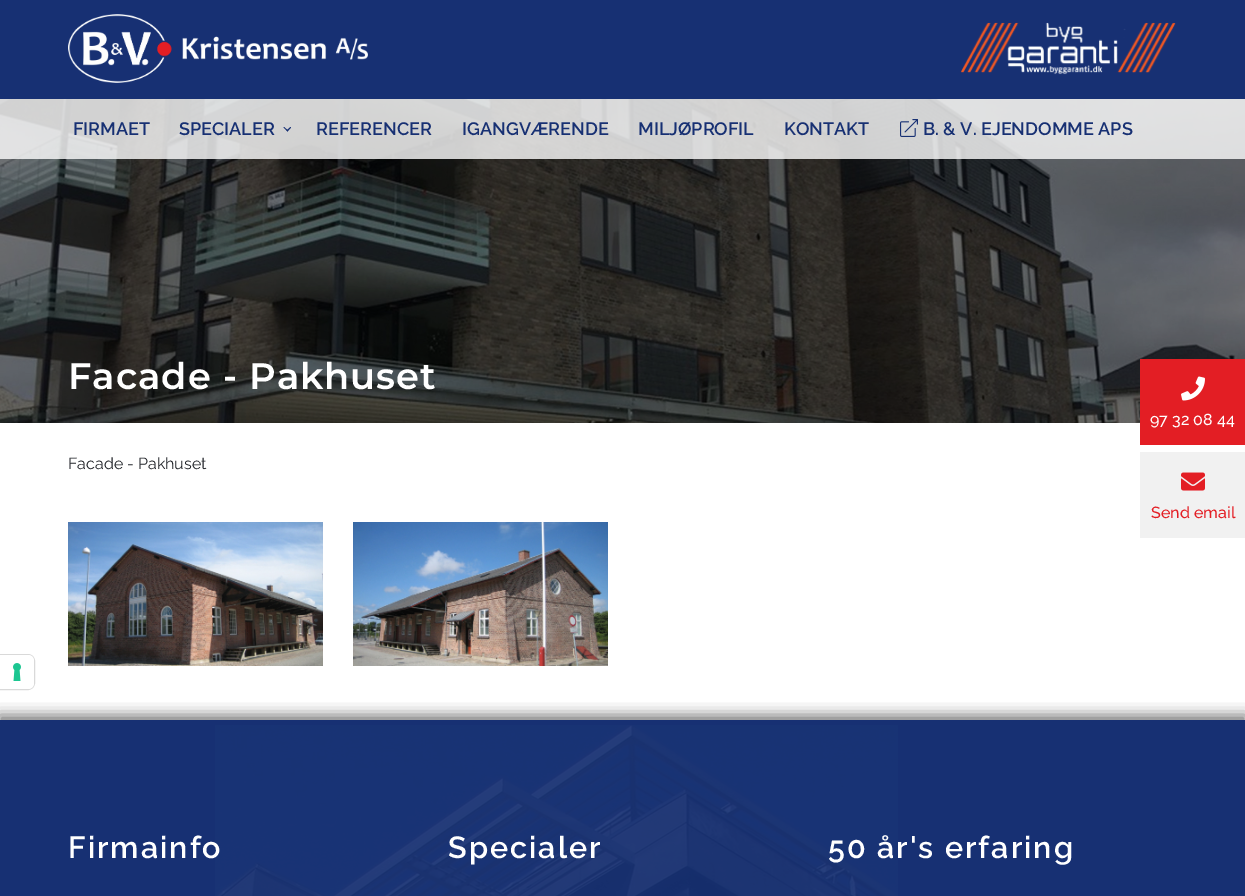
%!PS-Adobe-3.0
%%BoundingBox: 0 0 1245 896
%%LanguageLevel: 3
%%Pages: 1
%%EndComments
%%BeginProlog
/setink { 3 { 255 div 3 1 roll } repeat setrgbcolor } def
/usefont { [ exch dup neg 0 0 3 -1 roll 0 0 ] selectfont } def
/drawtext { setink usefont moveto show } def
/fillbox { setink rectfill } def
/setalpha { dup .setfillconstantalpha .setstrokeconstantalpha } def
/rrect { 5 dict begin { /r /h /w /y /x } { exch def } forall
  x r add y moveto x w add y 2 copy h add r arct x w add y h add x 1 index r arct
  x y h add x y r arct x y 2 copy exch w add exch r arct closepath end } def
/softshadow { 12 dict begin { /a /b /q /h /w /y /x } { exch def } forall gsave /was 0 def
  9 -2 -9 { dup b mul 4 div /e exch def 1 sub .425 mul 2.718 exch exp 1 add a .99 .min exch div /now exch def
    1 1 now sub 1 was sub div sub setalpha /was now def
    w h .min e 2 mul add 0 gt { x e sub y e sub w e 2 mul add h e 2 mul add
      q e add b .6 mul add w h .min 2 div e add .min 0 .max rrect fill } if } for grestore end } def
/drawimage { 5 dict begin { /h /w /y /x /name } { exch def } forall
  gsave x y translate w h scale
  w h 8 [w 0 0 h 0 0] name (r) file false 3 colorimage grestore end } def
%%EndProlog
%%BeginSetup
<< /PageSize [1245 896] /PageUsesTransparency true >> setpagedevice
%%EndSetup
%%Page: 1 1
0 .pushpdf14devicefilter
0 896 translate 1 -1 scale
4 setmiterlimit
0 0 1245 896 255 255 255 fillbox
217 217 217 setink
-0.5 654.5 moveto 28 654.5 lineto 31.5 654.5 34.5 657.5 34.5 661 curveto 34.5 683 lineto 34.5 686.5 31.5 689.5 28 689.5 curveto -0.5 689.5 lineto closepath stroke
255 255 255 setink
0 655 moveto 28 655 lineto 31.5 655 34 657.5 34 661 curveto 34 683 lineto 34 686.5 31.5 689 28 689 curveto 0 689 lineto closepath fill
(assets/img1.rgb) 13 663 8 18 drawimage
0 0 1245 99 23 48 115 fillbox
(assets/img2.rgb) 68 14 300 69 drawimage
(assets/img3.rgb) 961 22 215 53 drawimage
0 99 1245 324 0 0 0 fillbox
(assets/img5.rgb) 0 99 1245 324 drawimage
0.8 setalpha
0 99 1245 60 255 255 255 fillbox
1 setalpha
(FIRMAET) 73 135 /Raleway-SemiBold 18 23 48 115 drawtext
(SPECIALER) 179 135 /Raleway-SemiBold 18 23 48 115 drawtext
291 127.5 moveto 287.5 131.5 lineto 286.5 130.5 lineto 290.5 127 lineto closepath fill
288 130.5 moveto 287.5 131.5 lineto 283.5 127.5 lineto 284 127 lineto closepath fill
(REFERENCER) 316 135 /Raleway-SemiBold 18 23 48 115 drawtext
(IGANGVÆRENDE) 462 135 /Raleway-SemiBold 18 23 48 115 drawtext
(MILJØPROFIL) 638 135 /Raleway-SemiBold 18 23 48 115 drawtext
(KONTAKT) 784 135 /Raleway-SemiBold 18 23 48 115 drawtext
(assets/img4.rgb) 900 119 18 18 drawimage
(B. & V. EJENDOMME APS) 923 135 /Raleway-SemiBold 18 23 48 115 drawtext
/Montserrat-SemiBold 36.75 usefont
255 255 255 setink
68 389 moveto 1 0 (Facade - Pakhuset) ashow
1140 359 105 86 227 30 36 fillbox
(assets/img6.rgb) 1181 376 24 25 drawimage
(97 32 08 44) 1150 425 /Raleway-Medium 16 255 255 255 drawtext
1140 452 105 86 241 241 241 fillbox
(assets/img7.rgb) 1181 472 24 19 drawimage
(Send email) 1151 518 /Raleway-Medium 16 227 30 36 drawtext
0 720 1245 176 23 48 115 fillbox
(assets/img8.rgb) 215 725 683 171 drawimage
gsave
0 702 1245 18 rectclip
49 49 49 setink
-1 715 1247 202 0 7 0.65 softshadow
grestore
/Raleway-SemiBold 30.5 usefont
255 255 255 setink
68 858 moveto 2 0 (Firmainfo) ashow
448 858 moveto 2 0 (Specialer) ashow
828 858 moveto 2 0 (50 år's erfaring) ashow
(Facade - Pakhuset) 68 469 /Raleway-Regular 16 33 36 41 drawtext
(assets/img9.rgb) 68 522 255 144 drawimage
(assets/img10.rgb) 353 522 255 144 drawimage
.poppdf14devicefilter showpage
%%EOF
